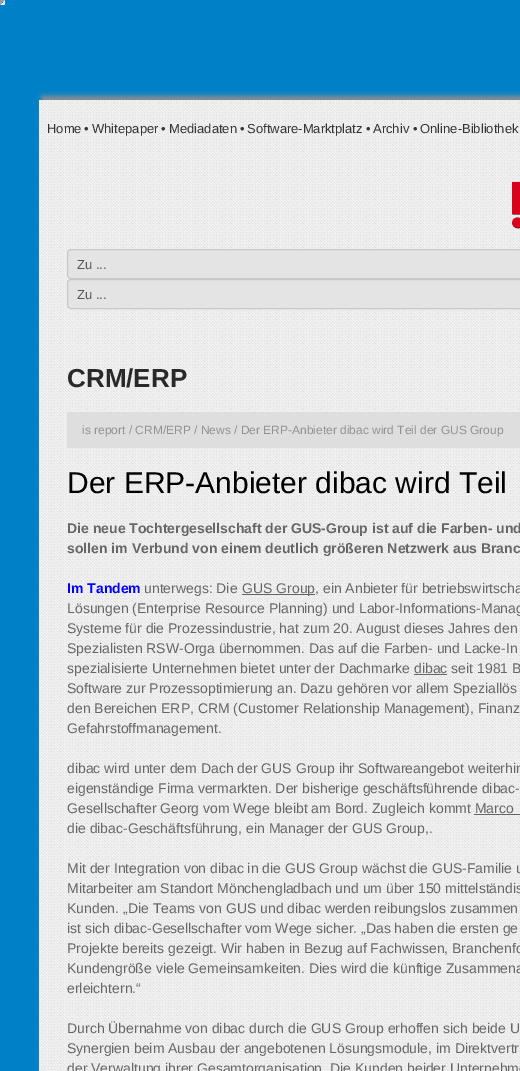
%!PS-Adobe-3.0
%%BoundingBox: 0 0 520 1071
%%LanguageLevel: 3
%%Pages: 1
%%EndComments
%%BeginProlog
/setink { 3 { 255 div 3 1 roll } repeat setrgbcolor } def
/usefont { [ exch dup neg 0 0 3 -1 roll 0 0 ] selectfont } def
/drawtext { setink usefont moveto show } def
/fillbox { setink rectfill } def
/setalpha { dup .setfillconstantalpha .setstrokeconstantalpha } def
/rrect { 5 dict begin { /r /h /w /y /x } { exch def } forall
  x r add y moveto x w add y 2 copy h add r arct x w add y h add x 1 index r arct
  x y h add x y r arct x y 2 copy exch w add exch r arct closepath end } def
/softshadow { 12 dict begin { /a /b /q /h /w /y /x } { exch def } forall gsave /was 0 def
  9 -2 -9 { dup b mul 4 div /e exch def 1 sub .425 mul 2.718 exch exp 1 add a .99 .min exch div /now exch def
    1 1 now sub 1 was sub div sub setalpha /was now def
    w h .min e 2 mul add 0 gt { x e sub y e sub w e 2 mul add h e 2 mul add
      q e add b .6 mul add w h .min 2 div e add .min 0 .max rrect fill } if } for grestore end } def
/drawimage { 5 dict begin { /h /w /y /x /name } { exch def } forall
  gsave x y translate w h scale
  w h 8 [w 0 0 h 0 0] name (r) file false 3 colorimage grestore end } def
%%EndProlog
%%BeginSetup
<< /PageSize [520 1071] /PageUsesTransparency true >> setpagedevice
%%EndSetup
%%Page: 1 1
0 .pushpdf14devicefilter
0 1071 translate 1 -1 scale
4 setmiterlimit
0 0 520 1071 0 129 199 fillbox
159 159 159 setink
0 0 moveto 5 0 lineto 3 2 lineto 2 2 lineto closepath fill
238 238 238 setink
5 0 moveto 5 5 lineto 3 3 lineto 3 2 lineto closepath fill
5 5 moveto 0 5 lineto 2 3 lineto 3 3 lineto closepath fill
159 159 159 setink
0 5 moveto 0 0 lineto 2 2 lineto 2 3 lineto closepath fill
142 142 142 setink
42 96 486 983 0 2.5 1 softshadow
(assets/img1.rgb) 39 100 481 971 drawimage
(Home) 47 133 /LiberationSans-Regular 13 51 51 51 drawtext
(•) 84 133 /LiberationSans-Regular 13 51 51 51 drawtext
(Whitepaper) 92 133 /LiberationSans-Regular 13 51 51 51 drawtext
(•) 161 133 /LiberationSans-Regular 13 51 51 51 drawtext
(Mediadaten) 169 133 /LiberationSans-Regular 13 51 51 51 drawtext
(•) 240 133 /LiberationSans-Regular 13 51 51 51 drawtext
(Software-Marktplatz) 247 133 /LiberationSans-Regular 13 51 51 51 drawtext
(•) 366 133 /LiberationSans-Regular 13 51 51 51 drawtext
(Archiv) 373 133 /LiberationSans-Regular 13 51 51 51 drawtext
(•) 413 133 /LiberationSans-Regular 13 51 51 51 drawtext
(Online-Bibliothek) 420 133 /LiberationSans-Regular 13 51 51 51 drawtext
(assets/img2.rgb) 512 181 8 48 drawimage
228 228 228 setink
67.5 249.5 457 29 3.5 rrect gsave fill grestore
200 200 200 setink
stroke
(Zu ...) 77 269 /LiberationSans-Regular 13 85 85 85 drawtext
228 228 228 setink
67.5 279.5 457 29 3.5 rrect gsave fill grestore
200 200 200 setink
stroke
(Zu ...) 77 299 /LiberationSans-Regular 13 85 85 85 drawtext
(CRM/ERP) 67 387 /LiberationSans-Bold 26 41 41 41 drawtext
67 412 453 36 222 222 222 fillbox
(is report / CRM/ERP / News / Der ERP-Anbieter dibac wird Teil der GUS Group) 82 434 /LiberationSans-Regular 12 145 145 145 drawtext
(Der ERP-Anbieter dibac wird Teil) 67 493 /LiberationSans-Regular 30 0 0 0 drawtext
(Die neue Tochtergesellschaft der GUS-Group ist auf die Farben- und) 67 533 /LiberationSans-Bold 14 102 102 102 drawtext
(sollen im Verbund von einem deutlich größeren Netzwerk aus Branc) 67 553 /LiberationSans-Bold 14 102 102 102 drawtext
(Im Tandem) 67 593 /LiberationSans-Bold 14 0 0 255 drawtext
(unterwegs: Die) 144 593 /LiberationSans-Regular 14 102 102 102 drawtext
242 594 73 1 102 102 102 fillbox
(GUS Group, ein Anbieter für betriebswirtscha) 242 593 /LiberationSans-Regular 14 102 102 102 drawtext
(Lösungen \(Enterprise Resource Planning\) und Labor-Informations-Manag) 67 613 /LiberationSans-Regular 14 102 102 102 drawtext
(Systeme für die Prozessindustrie, hat zum 20. August dieses Jahres den) 67 633 /LiberationSans-Regular 14 102 102 102 drawtext
(Spezialisten RSW-Orga übernommen. Das auf die Farben- und Lacke-In) 67 653 /LiberationSans-Regular 14 102 102 102 drawtext
(spezialisierte Unternehmen bietet unter der Dachmarke dibac seit 1981 B) 67 673 /LiberationSans-Regular 14 102 102 102 drawtext
414 674 33 1 102 102 102 fillbox
(Software zur Prozessoptimierung an. Dazu gehören vor allem Speziallös) 67 693 /LiberationSans-Regular 14 102 102 102 drawtext
(den Bereichen ERP, CRM \(Customer Relationship Management\), Finanz) 67 713 /LiberationSans-Regular 14 102 102 102 drawtext
(Gefahrstoffmanagement.) 67 733 /LiberationSans-Regular 14 102 102 102 drawtext
(dibac wird unter dem Dach der GUS Group ihr Softwareangebot weiterhin) 67 773 /LiberationSans-Regular 14 102 102 102 drawtext
(eigenständige Firma vermarkten. Der bisherige geschäftsführende dibac-) 67 793 /LiberationSans-Regular 14 102 102 102 drawtext
(Gesellschafter Georg vom Wege bleibt am Bord. Zugleich kommt Marco) 67 813 /LiberationSans-Regular 14 102 102 102 drawtext
474 814 46 1 102 102 102 fillbox
(die dibac-Geschäftsführung, ein Manager der GUS Group,.) 67 833 /LiberationSans-Regular 14 102 102 102 drawtext
(Mit der Integration von dibac in die GUS Group wächst die GUS-Familie u) 67 873 /LiberationSans-Regular 14 102 102 102 drawtext
(Mitarbeiter am Standort Mönchengladbach und um über 150 mittelständis) 67 893 /LiberationSans-Regular 14 102 102 102 drawtext
(Kunden. „Die Teams von GUS und dibac werden reibungslos zusammen) 67 913 /LiberationSans-Regular 14 102 102 102 drawtext
(ist sich dibac-Gesellschafter vom Wege sicher. „Das haben die ersten ge) 67 933 /LiberationSans-Regular 14 102 102 102 drawtext
(Projekte bereits gezeigt. Wir haben in Bezug auf Fachwissen, Branchenfo) 67 953 /LiberationSans-Regular 14 102 102 102 drawtext
(Kundengröße viele Gemeinsamkeiten. Dies wird die künftige Zusammena) 67 973 /LiberationSans-Regular 14 102 102 102 drawtext
(erleichtern.“) 67 993 /LiberationSans-Regular 14 102 102 102 drawtext
(Durch Übernahme von dibac durch die GUS Group erhoffen sich beide U) 67 1033 /LiberationSans-Regular 14 102 102 102 drawtext
(Synergien beim Ausbau der angebotenen Lösungsmodule, im Direktvertr) 67 1053 /LiberationSans-Regular 14 102 102 102 drawtext
(der Verwaltung ihrer Gesamtorganisation. Die Kunden beider Unternehme) 67 1073 /LiberationSans-Regular 14 102 102 102 drawtext
.poppdf14devicefilter showpage
%%EOF
